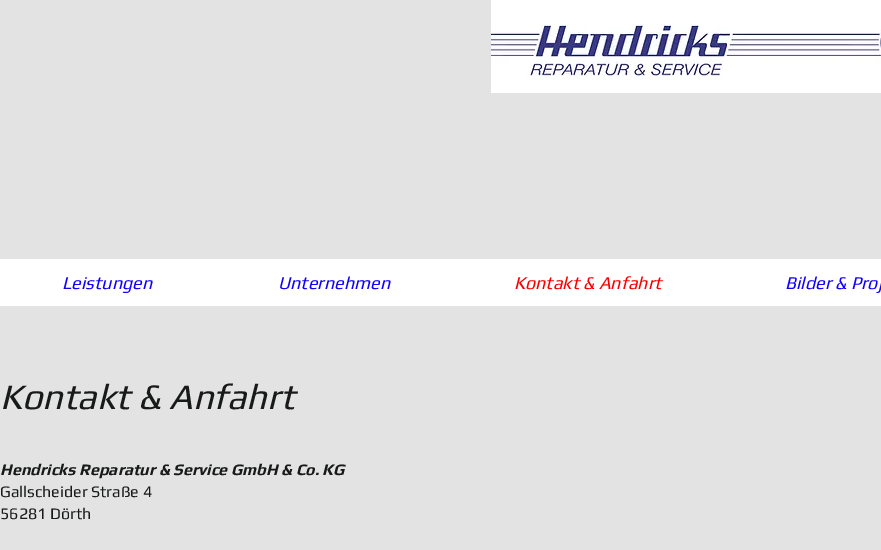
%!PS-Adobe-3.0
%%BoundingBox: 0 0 881 550
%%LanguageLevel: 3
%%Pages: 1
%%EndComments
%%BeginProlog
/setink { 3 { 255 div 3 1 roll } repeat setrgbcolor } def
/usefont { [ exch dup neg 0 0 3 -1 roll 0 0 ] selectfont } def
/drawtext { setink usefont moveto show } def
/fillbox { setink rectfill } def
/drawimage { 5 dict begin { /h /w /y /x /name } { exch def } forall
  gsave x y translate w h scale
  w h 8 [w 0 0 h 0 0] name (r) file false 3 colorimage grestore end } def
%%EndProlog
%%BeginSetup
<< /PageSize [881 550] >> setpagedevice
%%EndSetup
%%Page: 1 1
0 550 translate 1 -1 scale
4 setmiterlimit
0 0 881 550 227 227 227 fillbox
491 0 390 93 255 255 255 fillbox
(assets/img1.rgb) 491 24 390 56 drawimage
0 259 881 47 255 255 255 fillbox
(Leistungen) 62 289 /Play-Italic 18 17 0 250 drawtext
(Unternehmen) 278 289 /Play-Italic 18 17 0 250 drawtext
(Kontakt & Anfahrt) 514 289 /Play-Italic 18 250 0 0 drawtext
(Bilder & Proj) 785 289 /Play-Italic 18 17 0 250 drawtext
(Kontakt & Anfahrt) 0 409 /Play-Italic 36 24 25 25 drawtext
(Hendricks Reparatur & Service GmbH & Co. KG) 0 475 /Play-BoldItalic 16 24 25 25 drawtext
(Gallscheider Straße 4) 0 497 /Play-Regular 16 24 25 25 drawtext
(56281 Dörth) 0 519 /Play-Regular 16 24 25 25 drawtext
showpage
%%EOF
